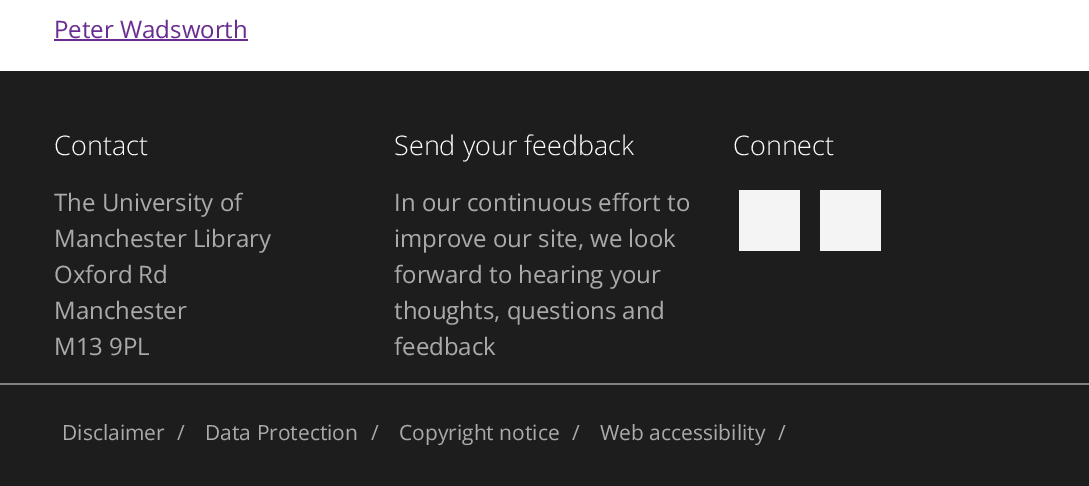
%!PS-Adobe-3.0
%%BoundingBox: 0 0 1089 486
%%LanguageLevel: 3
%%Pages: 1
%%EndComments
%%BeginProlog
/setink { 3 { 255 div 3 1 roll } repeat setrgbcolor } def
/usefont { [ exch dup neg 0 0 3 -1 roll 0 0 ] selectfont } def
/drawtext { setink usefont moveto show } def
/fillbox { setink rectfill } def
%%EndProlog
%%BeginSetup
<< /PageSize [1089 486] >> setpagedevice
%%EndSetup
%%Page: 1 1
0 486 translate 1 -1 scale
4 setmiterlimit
0 0 1089 486 29 29 29 fillbox
0 0 1089 71 255 255 255 fillbox
(Peter Wadsworth) 54 38 /OpenSans-Regular 24 107 44 145 drawtext
54 39 194 2 107 44 145 fillbox
(Contact) 54 155 /OpenSans-Light 27 255 255 255 drawtext
(The University of) 54 211 /OpenSans-Regular 24 170 170 170 drawtext
(Manchester Library) 54 247 /OpenSans-Regular 24 170 170 170 drawtext
(Oxford Rd) 54 283 /OpenSans-Regular 24 170 170 170 drawtext
(Manchester) 54 319 /OpenSans-Regular 24 170 170 170 drawtext
(M13 9PL) 54 355 /OpenSans-Regular 24 170 170 170 drawtext
(Send your feedback) 394 155 /OpenSans-Light 27 255 255 255 drawtext
(In our continuous effort to) 394 211 /OpenSans-Regular 24 170 170 170 drawtext
(improve our site, we look) 394 247 /OpenSans-Regular 24 170 170 170 drawtext
(forward to hearing your) 394 283 /OpenSans-Regular 24 170 170 170 drawtext
(thoughts, questions and) 394 319 /OpenSans-Regular 24 170 170 170 drawtext
(feedback) 394 355 /OpenSans-Regular 24 170 170 170 drawtext
(Connect) 733 155 /OpenSans-Light 27 255 255 255 drawtext
739 190 61 61 244 244 244 fillbox
820 190 61 61 244 244 244 fillbox
0 383 1089 2 128 129 132 fillbox
(Disclaimer) 62 440 /OpenSans-Regular 21 170 170 170 drawtext
(/) 177 440 /OpenSans-Regular 21 170 170 170 drawtext
(Data Protection) 205 440 /OpenSans-Regular 21 170 170 170 drawtext
(/) 371 440 /OpenSans-Regular 21 170 170 170 drawtext
(Copyright notice) 399 440 /OpenSans-Regular 21 170 170 170 drawtext
(/) 572 440 /OpenSans-Regular 21 170 170 170 drawtext
(Web accessibility) 600 440 /OpenSans-Regular 21 170 170 170 drawtext
(/) 778 440 /OpenSans-Regular 21 170 170 170 drawtext
showpage
%%EOF
